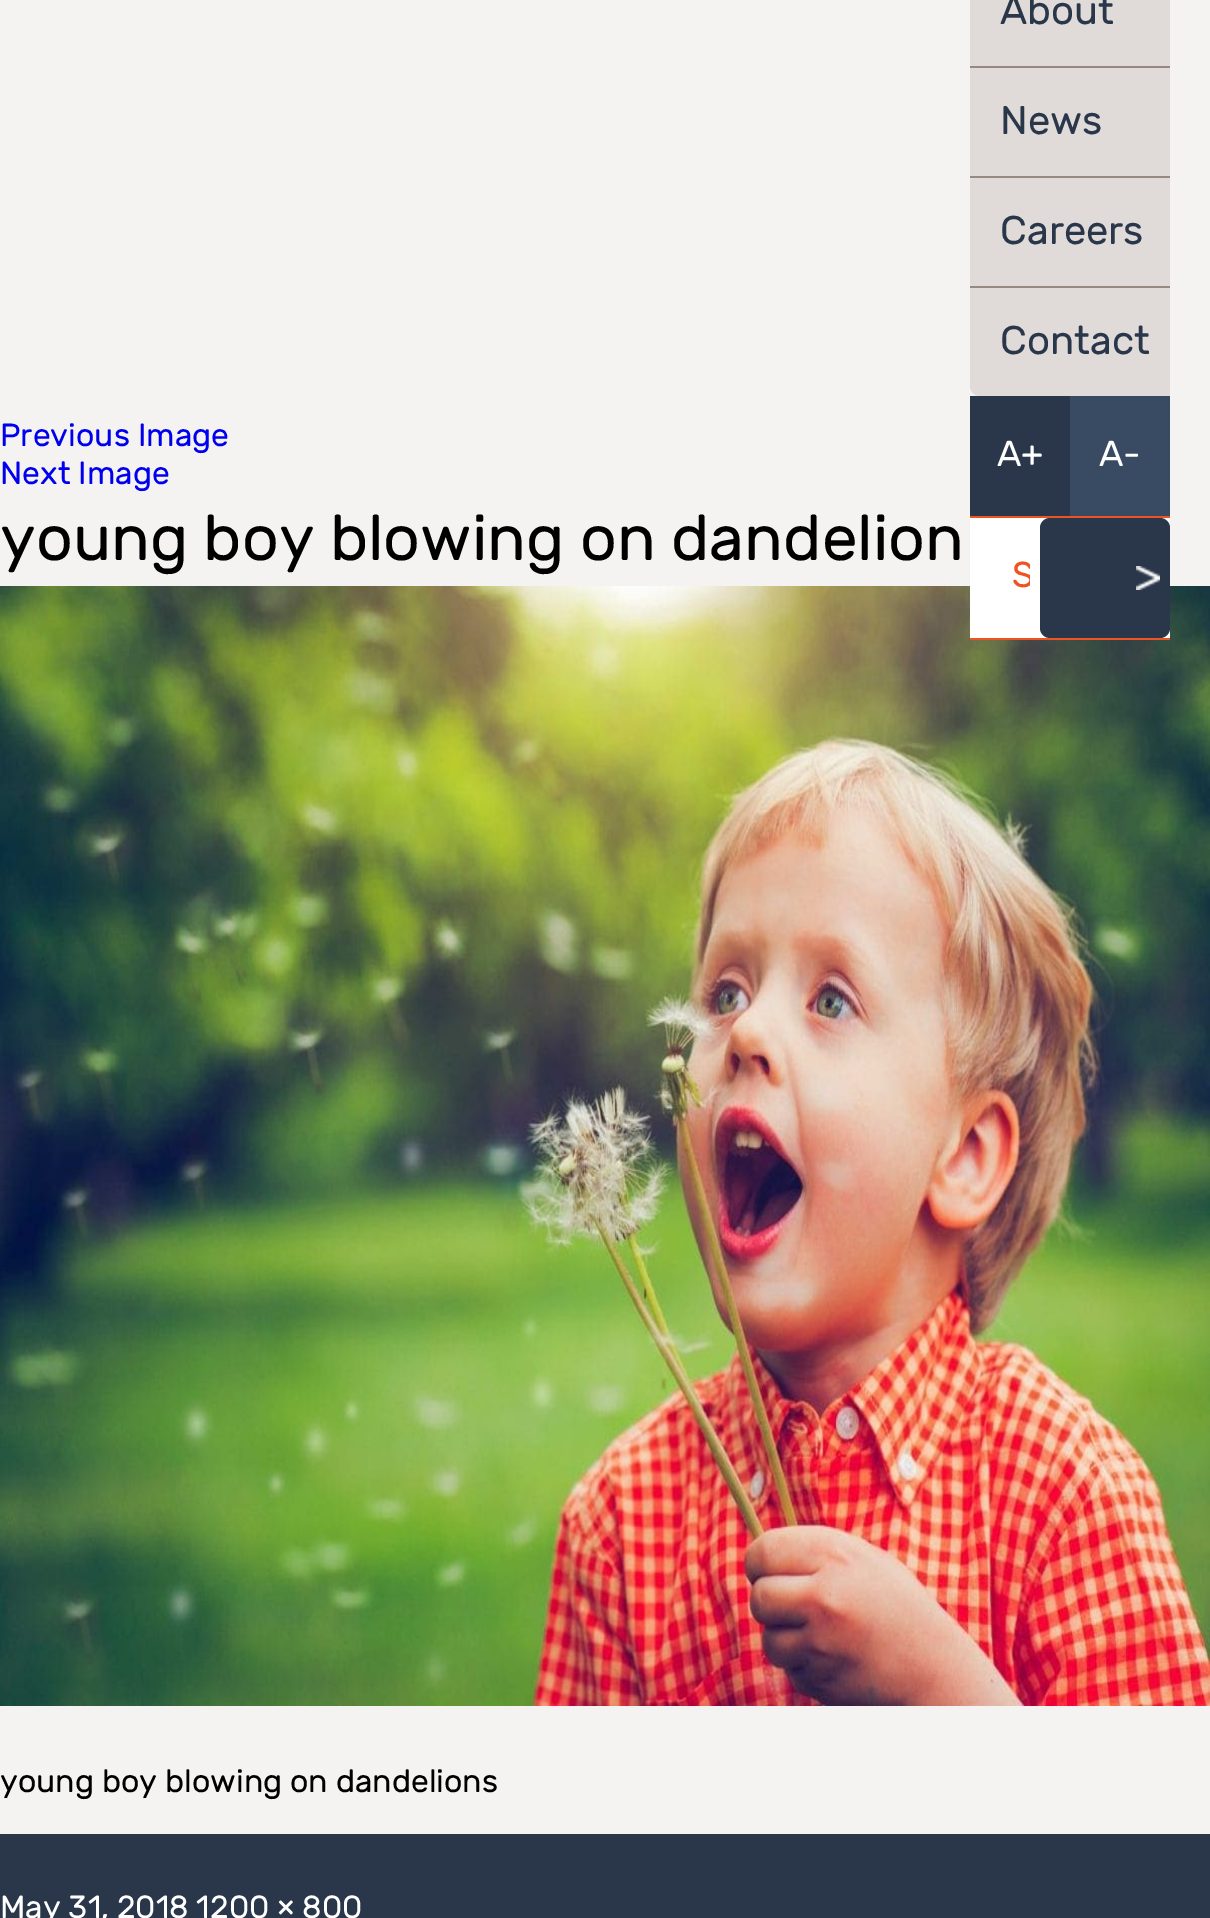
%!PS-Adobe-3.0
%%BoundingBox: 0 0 1210 1918
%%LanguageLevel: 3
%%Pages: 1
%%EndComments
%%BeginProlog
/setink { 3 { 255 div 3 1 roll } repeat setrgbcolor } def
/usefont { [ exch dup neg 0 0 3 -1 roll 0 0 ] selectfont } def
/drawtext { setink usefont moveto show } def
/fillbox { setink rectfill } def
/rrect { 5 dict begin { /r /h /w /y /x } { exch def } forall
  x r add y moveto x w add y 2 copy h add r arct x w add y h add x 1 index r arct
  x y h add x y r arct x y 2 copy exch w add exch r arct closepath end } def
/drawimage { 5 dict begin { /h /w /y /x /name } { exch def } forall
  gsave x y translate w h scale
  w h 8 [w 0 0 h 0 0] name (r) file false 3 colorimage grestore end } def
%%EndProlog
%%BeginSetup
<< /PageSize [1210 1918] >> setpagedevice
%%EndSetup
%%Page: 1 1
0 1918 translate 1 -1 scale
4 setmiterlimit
0 0 1210 1918 244 243 242 fillbox
224 219 217 setink
970 -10 moveto 1170 -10 lineto 1170 396 lineto 980 396 lineto 974.5 396 970 391.5 970 386 curveto closepath fill
970 66 200 2 151 136 129 fillbox
(About) 1000 24 /Rubik-Regular 40 42 55 74 drawtext
970 176 200 2 151 136 129 fillbox
(News) 1000 134 /Rubik-Regular 40 42 55 74 drawtext
970 286 200 2 151 136 129 fillbox
(Careers) 1000 244 /Rubik-Regular 40 42 55 74 drawtext
(Contact) 1000 354 /Rubik-Regular 40 42 55 74 drawtext
970 516 200 2 240 83 34 fillbox
970 396 100 120 42 55 74 fillbox
(A+) 997 466 /Rubik-Regular 36 255 255 255 drawtext
1070 396 100 120 57 74 99 fillbox
(A-) 1099 466 /Rubik-Regular 36 255 255 255 drawtext
(assets/img2.rgb) 0 586 1210 1120 drawimage
970 638 200 2 240 83 34 fillbox
970 518 200 120 255 255 255 fillbox
gsave
1012 556 18 42 rectclip
(S) 1012 587 /Rubik-Regular 36 240 83 34 drawtext
grestore
42 55 74 setink
1040 518 130 120 10 rrect fill
(assets/img1.rgb) 1136 566 24 24 drawimage
(Previous Image) 0 446 /Rubik-Regular 32 0 0 238 drawtext
(Next Image) 0 484 /Rubik-Regular 32 0 0 238 drawtext
(young boy blowing on dandelion) 0 560 /Rubik-Regular 64 0 0 0 drawtext
(young boy blowing on dandelions) 0 1792 /Rubik-Regular 32 0 0 0 drawtext
0 1834 1210 84 42 55 74 fillbox
(May 31, 2018 1200 × 800) 0 1918 /Rubik-Regular 32 255 255 255 drawtext
showpage
%%EOF
